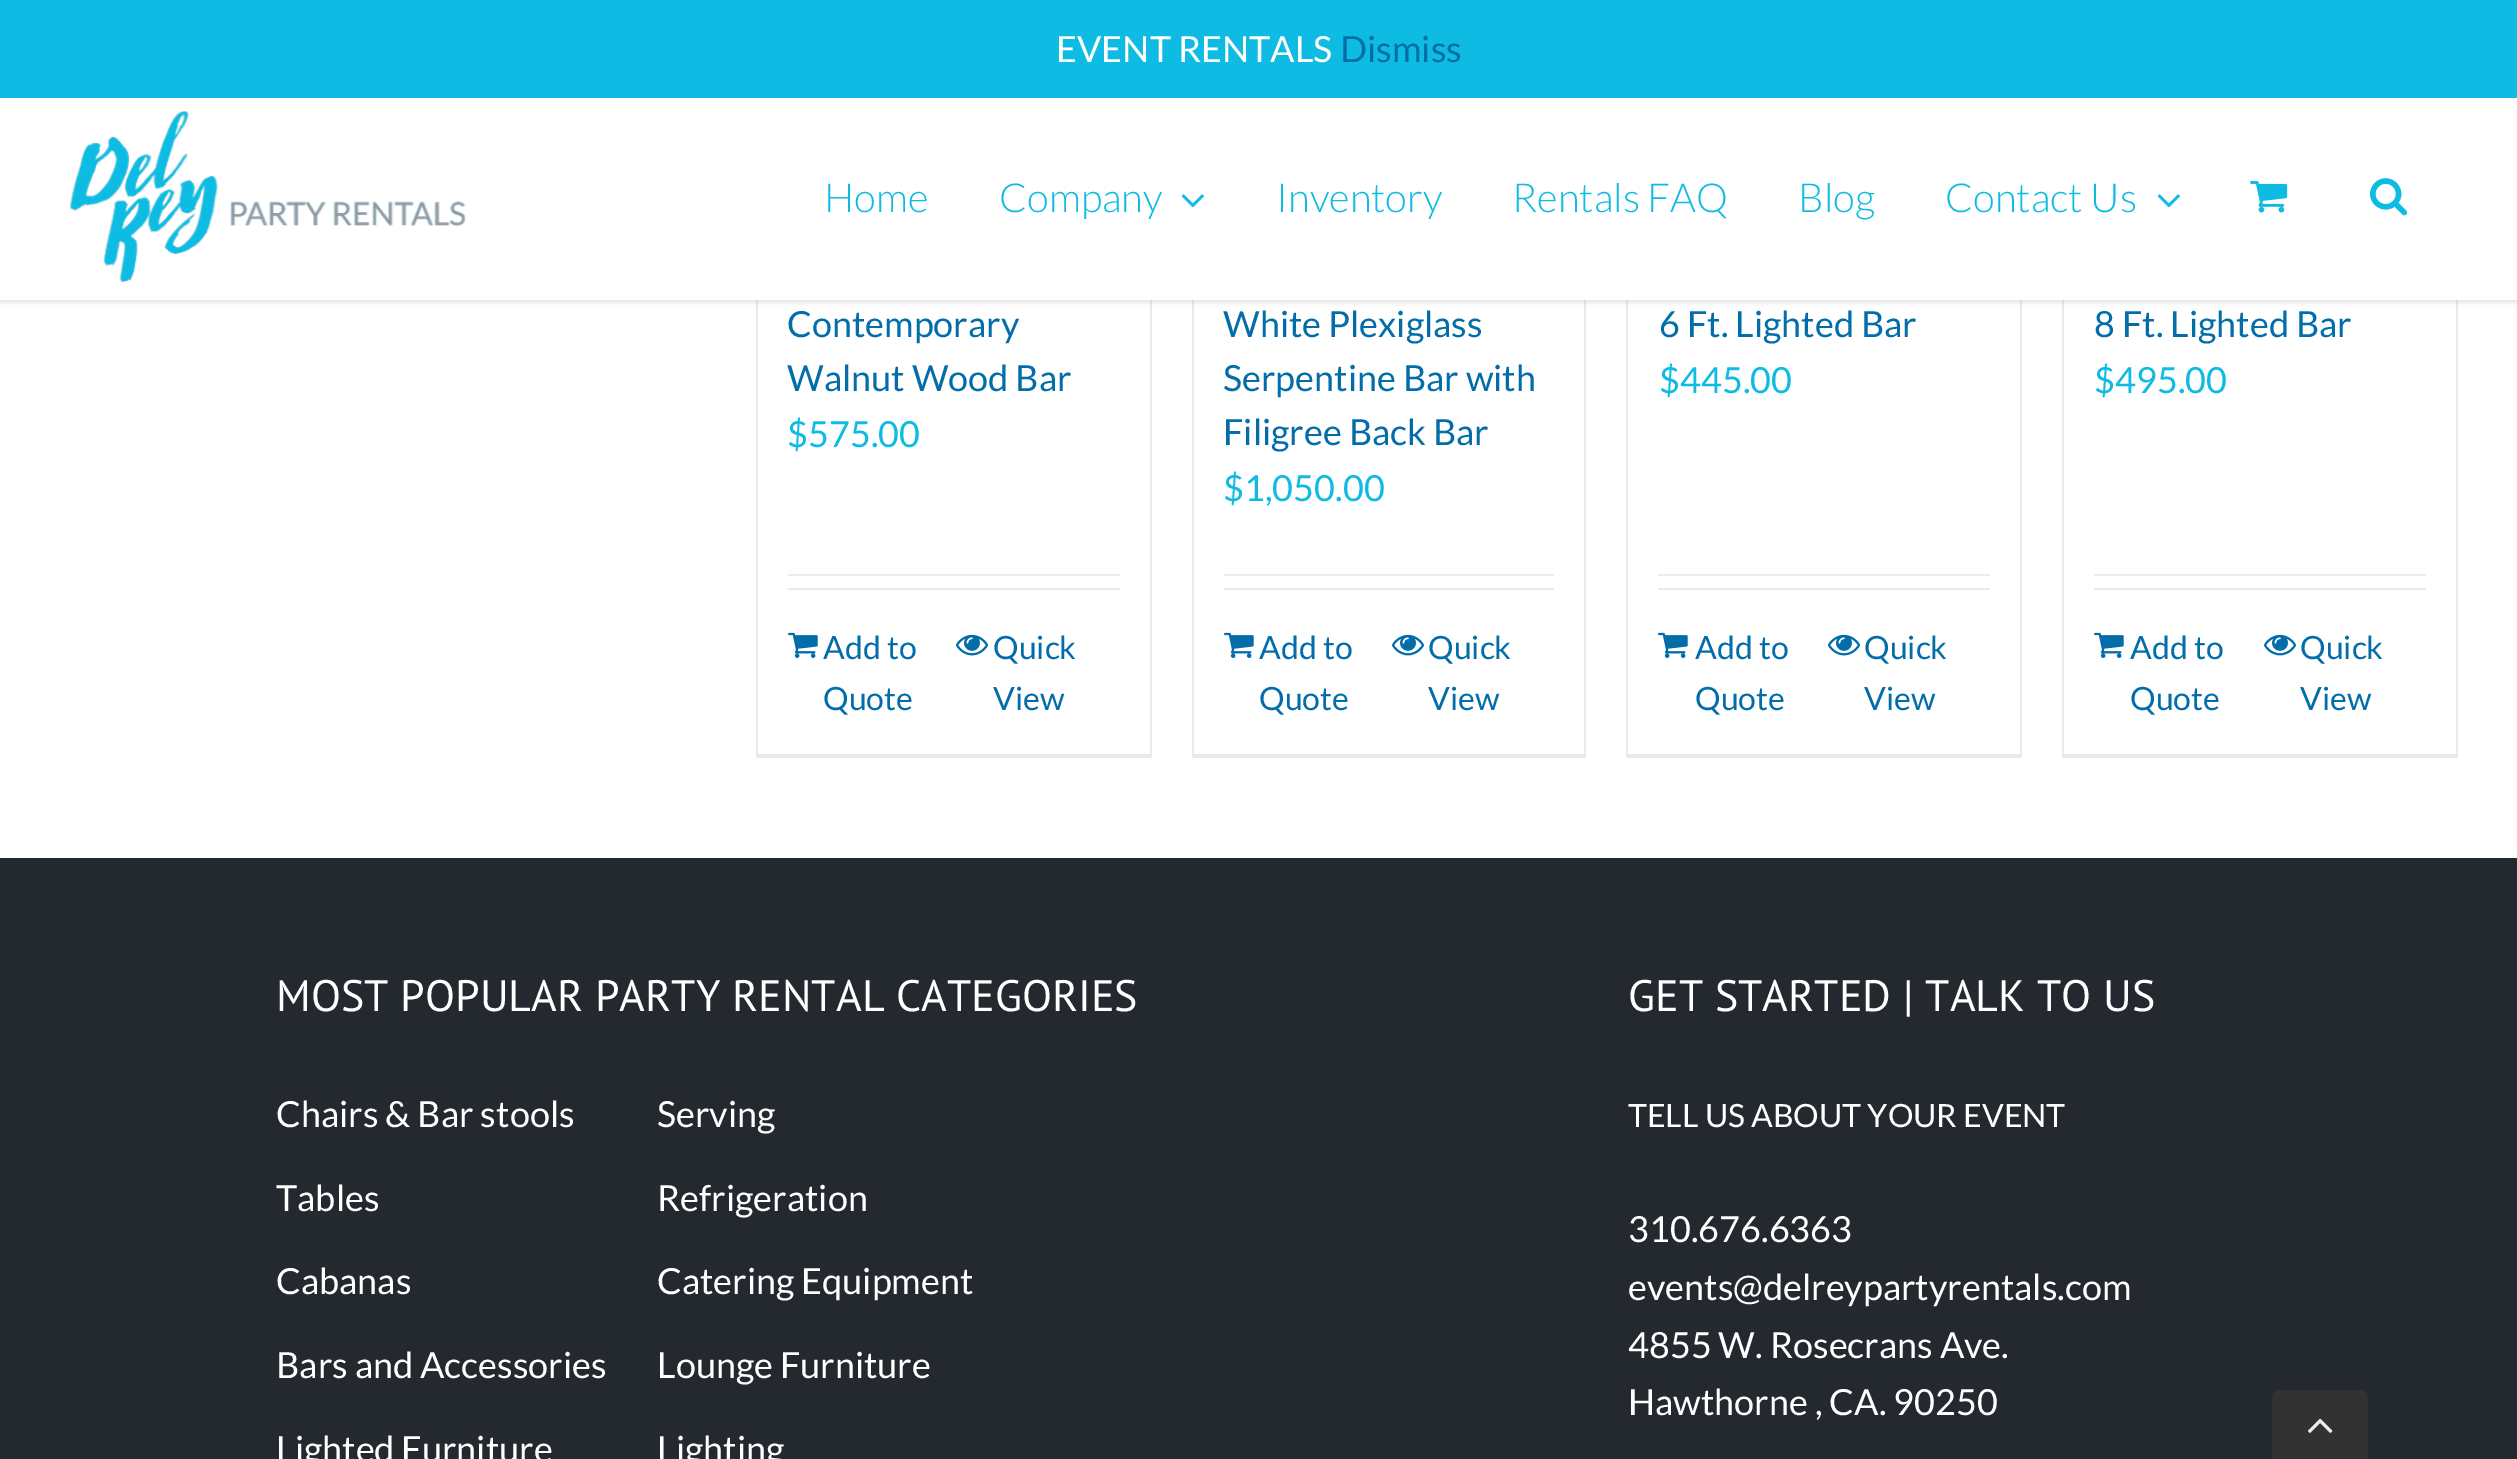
%!PS-Adobe-3.0
%%BoundingBox: 0 0 2517 1459
%%LanguageLevel: 3
%%Pages: 1
%%EndComments
%%BeginProlog
/setink { 3 { 255 div 3 1 roll } repeat setrgbcolor } def
/usefont { [ exch dup neg 0 0 3 -1 roll 0 0 ] selectfont } def
/drawtext { setink usefont moveto show } def
/fillbox { setink rectfill } def
/setalpha { dup .setfillconstantalpha .setstrokeconstantalpha } def
/rrect { 5 dict begin { /r /h /w /y /x } { exch def } forall
  x r add y moveto x w add y 2 copy h add r arct x w add y h add x 1 index r arct
  x y h add x y r arct x y 2 copy exch w add exch r arct closepath end } def
/softshadow { 12 dict begin { /a /b /q /h /w /y /x } { exch def } forall gsave /was 0 def
  9 -2 -9 { dup b mul 4 div /e exch def 1 sub .425 mul 2.718 exch exp 1 add a .99 .min exch div /now exch def
    1 1 now sub 1 was sub div sub setalpha /was now def
    w h .min e 2 mul add 0 gt { x e sub y e sub w e 2 mul add h e 2 mul add
      q e add b .6 mul add w h .min 2 div e add .min 0 .max rrect fill } if } for grestore end } def
/drawimage { 5 dict begin { /h /w /y /x /name } { exch def } forall
  gsave x y translate w h scale
  w h 8 [w 0 0 h 0 0] name (r) file false 3 colorimage grestore end } def
%%EndProlog
%%BeginSetup
<< /PageSize [2517 1459] /PageUsesTransparency true >> setpagedevice
%%EndSetup
%%Page: 1 1
0 .pushpdf14devicefilter
0 1459 translate 1 -1 scale
4 setmiterlimit
0 0 2517 1459 255 255 255 fillbox
1150 300 2 458 235 234 234 fillbox
756 754 396 4 235 234 234 fillbox
756 300 2 458 235 234 234 fillbox
1584 300 2 458 235 234 234 fillbox
1192 754 394 4 235 234 234 fillbox
1192 300 2 458 235 234 234 fillbox
2020 300 2 458 235 234 234 fillbox
1626 754 396 4 235 234 234 fillbox
1626 300 2 458 235 234 234 fillbox
2456 300 2 458 235 234 234 fillbox
2062 754 396 4 235 234 234 fillbox
2062 300 2 458 235 234 234 fillbox
0 0 0 setink
0 100 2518 202 0 3 0.12 softshadow
0 0 2517 98 14 187 226 fillbox
(EVENT RENTALS) 1056 62 /Lato-Regular 36 255 255 255 drawtext
(Dismiss) 1340 62 /Lato-Regular 36 3 109 170 drawtext
0 98 2517 202 255 255 255 fillbox
(assets/img1.rgb) 70 111 396 171 drawimage
(Home) 824 212 /Lato-Light 40 14 187 226 drawtext
(Company) 999 212 /Lato-Light 40 14 187 226 drawtext
(assets/img2.rgb) 1181 194 23 14 drawimage
(Inventory) 1276 212 /Lato-Light 40 14 187 226 drawtext
(Rentals FAQ) 1512 212 /Lato-Light 40 14 187 226 drawtext
(Blog) 1798 212 /Lato-Light 40 14 187 226 drawtext
(Contact Us) 1945 212 /Lato-Light 40 14 187 226 drawtext
(assets/img2.rgb) 2157 194 23 14 drawimage
(assets/img3.rgb) 2250 181 38 32 drawimage
(assets/img4.rgb) 2370 178 38 38 drawimage
(Contemporary) 787 337 /Lato-Regular 36 3 109 170 drawtext
(Walnut Wood Bar) 787 391 /Lato-Regular 36 3 109 170 drawtext
($575.00) 787 447 /Lato-Regular 36 14 187 226 drawtext
788 574 332 2 235 234 234 fillbox
788 588 332 2 235 234 234 fillbox
(assets/img5.rgb) 788 632 30 26 drawimage
(Add to) 823 659 /Lato-Regular 32 3 109 170 drawtext
(Quote) 823 710 /Lato-Regular 32 3 109 170 drawtext
(assets/img6.rgb) 956 634 32 22 drawimage
(Quick) 993 659 /Lato-Regular 32 3 109 170 drawtext
(View) 993 710 /Lato-Regular 32 3 109 170 drawtext
(White Plexiglass) 1223 337 /Lato-Regular 36 3 109 170 drawtext
(Serpentine Bar with) 1223 391 /Lato-Regular 36 3 109 170 drawtext
(Filigree Back Bar) 1223 445 /Lato-Regular 36 3 109 170 drawtext
($1,050.00) 1223 501 /Lato-Regular 36 14 187 226 drawtext
1224 574 330 2 235 234 234 fillbox
1224 588 330 2 235 234 234 fillbox
(assets/img5.rgb) 1224 632 30 26 drawimage
(Add to) 1259 659 /Lato-Regular 32 3 109 170 drawtext
(Quote) 1259 710 /Lato-Regular 32 3 109 170 drawtext
(assets/img6.rgb) 1392 634 32 22 drawimage
(Quick) 1428 659 /Lato-Regular 32 3 109 170 drawtext
(View) 1428 710 /Lato-Regular 32 3 109 170 drawtext
(6 Ft. Lighted Bar) 1659 337 /Lato-Regular 36 3 109 170 drawtext
($445.00) 1659 393 /Lato-Regular 36 14 187 226 drawtext
1658 574 332 2 235 234 234 fillbox
1658 588 332 2 235 234 234 fillbox
(assets/img5.rgb) 1658 632 30 26 drawimage
(Add to) 1695 659 /Lato-Regular 32 3 109 170 drawtext
(Quote) 1695 710 /Lato-Regular 32 3 109 170 drawtext
(assets/img6.rgb) 1828 634 32 22 drawimage
(Quick) 1864 659 /Lato-Regular 32 3 109 170 drawtext
(View) 1864 710 /Lato-Regular 32 3 109 170 drawtext
(8 Ft. Lighted Bar) 2094 337 /Lato-Regular 36 3 109 170 drawtext
($495.00) 2094 393 /Lato-Regular 36 14 187 226 drawtext
2094 574 332 2 235 234 234 fillbox
2094 588 332 2 235 234 234 fillbox
(assets/img5.rgb) 2094 632 30 26 drawimage
(Add to) 2130 659 /Lato-Regular 32 3 109 170 drawtext
(Quote) 2130 710 /Lato-Regular 32 3 109 170 drawtext
(assets/img6.rgb) 2264 634 32 22 drawimage
(Quick) 2300 659 /Lato-Regular 32 3 109 170 drawtext
(View) 2300 710 /Lato-Regular 32 3 109 170 drawtext
0 858 2517 601 36 40 47 fillbox
(MOST POPULAR PARTY RENTAL CATEGORIES) 276 1011 /PTSans-Regular 44 255 255 255 drawtext
(Chairs & Bar stools) 276 1127 /Lato-Regular 36 255 255 255 drawtext
(Tables) 276 1211 /Lato-Regular 36 255 255 255 drawtext
(Cabanas) 276 1294 /Lato-Regular 36 255 255 255 drawtext
(Bars and Accessories) 276 1378 /Lato-Regular 36 255 255 255 drawtext
(Lighted Furniture) 276 1462 /Lato-Regular 36 255 255 255 drawtext
(Serving) 657 1127 /Lato-Regular 36 255 255 255 drawtext
(Refrigeration) 657 1211 /Lato-Regular 36 255 255 255 drawtext
(Catering Equipment) 657 1294 /Lato-Regular 36 255 255 255 drawtext
(Lounge Furniture) 657 1378 /Lato-Regular 36 255 255 255 drawtext
(Lighting) 657 1462 /Lato-Regular 36 255 255 255 drawtext
(GET STARTED | TALK TO US) 1628 1011 /PTSans-Regular 44 255 255 255 drawtext
(TELL US ABOUT YOUR EVENT) 1628 1127 /Lato-Regular 32 255 255 255 drawtext
(310.676.6363) 1628 1242 /Lato-Regular 36 255 255 255 drawtext
(events@delreypartyrentals.com) 1628 1300 /Lato-Regular 36 255 255 255 drawtext
(4855 W. Rosecrans Ave.) 1628 1358 /Lato-Regular 36 255 255 255 drawtext
(Hawthorne , CA. 90250) 1628 1415 /Lato-Regular 36 255 255 255 drawtext
50 50 51 setink
2280 1390 moveto 2360 1390 lineto 2364.5 1390 2368 1393.5 2368 1398 curveto 2368 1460 lineto 2272 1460 lineto 2272 1398 lineto 2272 1393.5 2275.5 1390 2280 1390 curveto closepath fill
(assets/img7.rgb) 2308 1418 25 15 drawimage
.poppdf14devicefilter showpage
%%EOF
